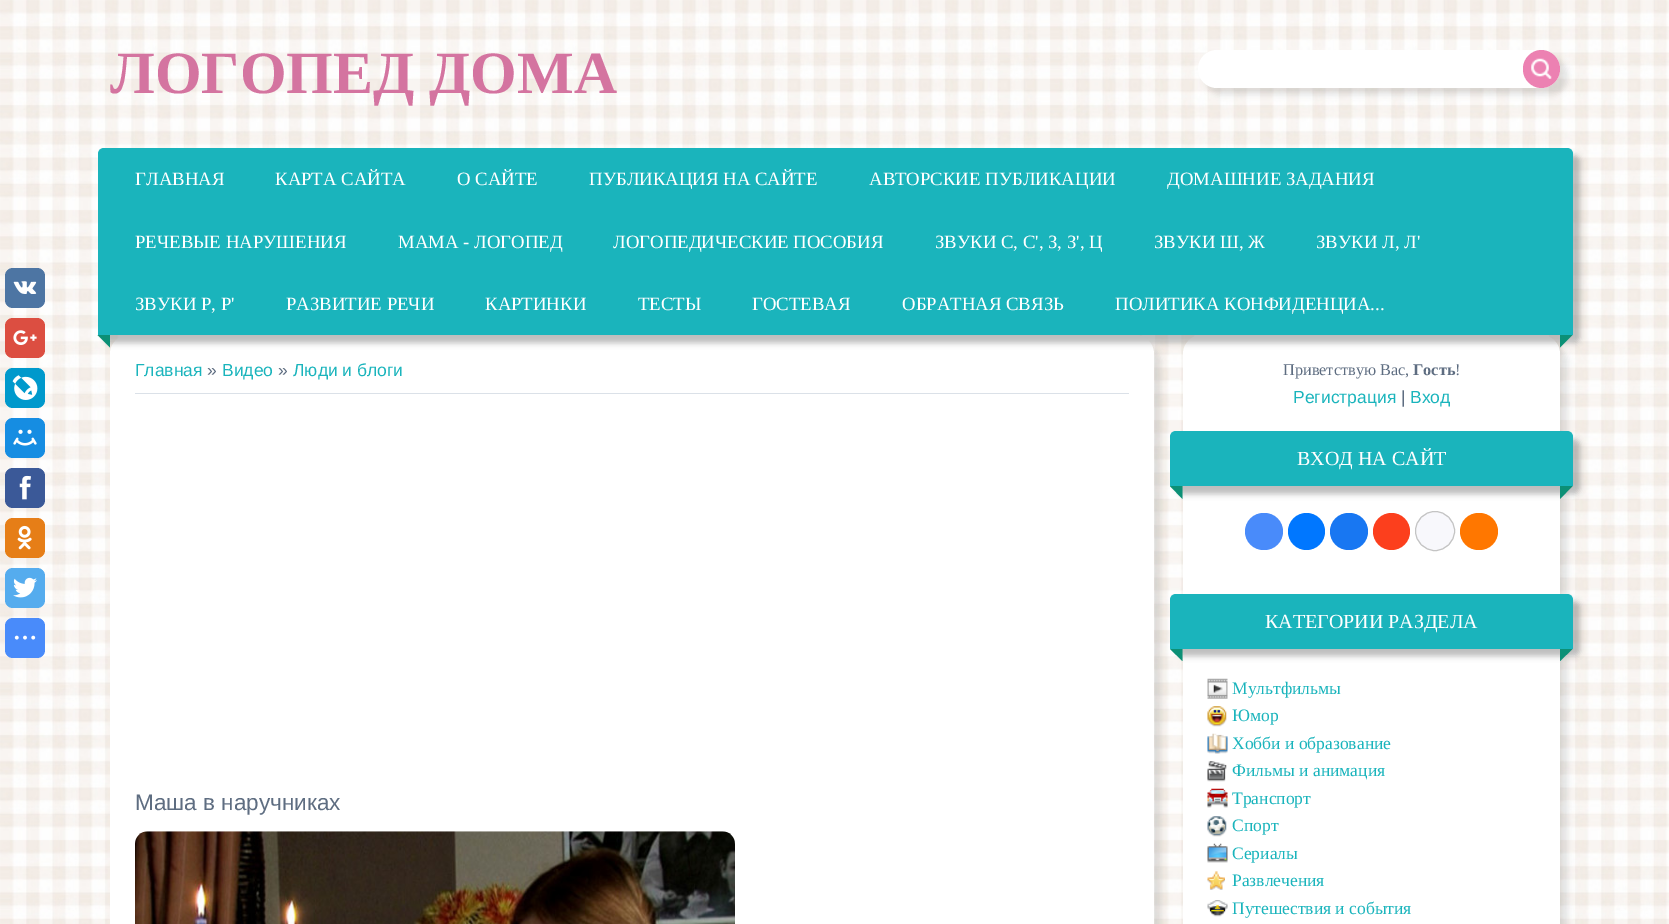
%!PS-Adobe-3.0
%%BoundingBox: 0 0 1669 924
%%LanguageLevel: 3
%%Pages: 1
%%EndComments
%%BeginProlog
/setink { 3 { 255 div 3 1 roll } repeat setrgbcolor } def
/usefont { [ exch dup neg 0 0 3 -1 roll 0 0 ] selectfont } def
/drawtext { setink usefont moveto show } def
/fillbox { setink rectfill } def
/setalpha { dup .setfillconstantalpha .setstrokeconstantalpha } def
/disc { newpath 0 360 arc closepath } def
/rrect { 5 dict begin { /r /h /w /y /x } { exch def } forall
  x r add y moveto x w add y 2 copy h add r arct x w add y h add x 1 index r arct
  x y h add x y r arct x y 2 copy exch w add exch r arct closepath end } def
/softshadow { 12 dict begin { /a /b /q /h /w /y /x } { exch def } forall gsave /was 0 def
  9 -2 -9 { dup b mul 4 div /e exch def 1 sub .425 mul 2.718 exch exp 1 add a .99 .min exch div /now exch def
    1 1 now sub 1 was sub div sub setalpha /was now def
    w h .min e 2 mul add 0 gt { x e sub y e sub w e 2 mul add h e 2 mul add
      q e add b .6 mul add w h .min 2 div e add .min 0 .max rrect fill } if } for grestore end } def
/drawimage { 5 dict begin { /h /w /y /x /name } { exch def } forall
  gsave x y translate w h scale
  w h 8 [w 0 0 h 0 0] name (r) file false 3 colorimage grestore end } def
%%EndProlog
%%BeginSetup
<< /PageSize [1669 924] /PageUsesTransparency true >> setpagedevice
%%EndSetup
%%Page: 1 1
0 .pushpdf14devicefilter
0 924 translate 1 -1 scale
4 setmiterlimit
0 0 1669 924 255 255 255 fillbox
(assets/img1.rgb) 0 0 1669 924 drawimage
(ЛОГОПЕД ДОМА) 110 93 /LiberationSerif-Bold 60 212 116 160 drawtext
122 122 122 setink
1205 58 363 37 18.5 3 0.2 softshadow
255 255 255 setink
1198 50 362 38 19 rrect fill
236 129 178 setink
1541.5 50 moveto 1541 50 lineto 1551.5 50 1560 58.5 1560 69 curveto 1560 79.5 1551.5 88 1541 88 curveto 1541.5 88 lineto 1531.5 88 1523 79.5 1523 69.5 curveto 1523 68.5 lineto 1523 58.5 1531.5 50 1541.5 50 curveto closepath fill
(assets/img2.rgb) 1531 58 21 21 drawimage
122 122 122 setink
118 343 1043 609 19 3 0.2 softshadow
255 255 255 setink
110 335 1044 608 19 rrect fill
122 122 122 setink
1190 343 378 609 19 3 0.2 softshadow
255 255 255 setink
1183 335 377 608 19 rrect fill
122 122 122 setink
105 155 1475 188 6 3 0.5 softshadow
26 180 188 setink
104 148 moveto 1567 148 lineto 1570.5 148 1573 150.5 1573 154 curveto 1573 335 lineto 98 335 lineto 98 154 lineto 98 150.5 100.5 148 104 148 curveto closepath fill
(ГЛАВНАЯ) 135 185 /LiberationSerif-Regular 18.75 255 255 255 drawtext
(КАРТА САЙТА) 275 185 /LiberationSerif-Regular 18.75 255 255 255 drawtext
(О САЙТЕ) 457 185 /LiberationSerif-Regular 18.75 255 255 255 drawtext
(ПУБЛИКАЦИЯ НА САЙТЕ) 589 185 /LiberationSerif-Regular 18.75 255 255 255 drawtext
(АВТОРСКИЕ ПУБЛИКАЦИИ) 869 185 /LiberationSerif-Regular 18.75 255 255 255 drawtext
(ДОМАШНИЕ ЗАДАНИЯ) 1167 185 /LiberationSerif-Regular 18.75 255 255 255 drawtext
(РЕЧЕВЫЕ НАРУШЕНИЯ) 135 248 /LiberationSerif-Regular 18.75 255 255 255 drawtext
(МАМА - ЛОГОПЕД) 398 248 /LiberationSerif-Regular 18.75 255 255 255 drawtext
(ЛОГОПЕДИЧЕСКИЕ ПОСОБИЯ) 613 248 /LiberationSerif-Regular 18.75 255 255 255 drawtext
(ЗВУКИ С, С', З, З', Ц) 935 248 /LiberationSerif-Regular 18.75 255 255 255 drawtext
(ЗВУКИ Ш, Ж) 1154 248 /LiberationSerif-Regular 18.75 255 255 255 drawtext
(ЗВУКИ Л, Л') 1316 248 /LiberationSerif-Regular 18.75 255 255 255 drawtext
(ЗВУКИ Р, Р') 135 310 /LiberationSerif-Regular 18.75 255 255 255 drawtext
(РАЗВИТИЕ РЕЧИ) 286 310 /LiberationSerif-Regular 18.75 255 255 255 drawtext
(КАРТИНКИ) 485 310 /LiberationSerif-Regular 18.75 255 255 255 drawtext
(ТЕСТЫ) 638 310 /LiberationSerif-Regular 18.75 255 255 255 drawtext
(ГОСТЕВАЯ) 752 310 /LiberationSerif-Regular 18.75 255 255 255 drawtext
(ОБРАТНАЯ СВЯЗЬ) 902 310 /LiberationSerif-Regular 18.75 255 255 255 drawtext
(ПОЛИТИКА КОНФИДЕНЦИА...) 1115 310 /LiberationSerif-Regular 18.75 255 255 255 drawtext
12 144 118 setink
97.5 335 moveto 110 335 lineto 110 347.5 lineto closepath fill
1560 335 moveto 1572.5 335 lineto 1560 347.5 lineto closepath fill
(Главная) 135 376 /LiberationSans-Regular 17.5 26 180 188 drawtext
(») 207 376 /LiberationSans-Regular 17.5 94 109 129 drawtext
(Видео) 222 376 /LiberationSans-Regular 17.5 26 180 188 drawtext
(») 278 376 /LiberationSans-Regular 17.5 94 109 129 drawtext
(Люди и блоги) 293 376 /LiberationSans-Regular 17.5 26 180 188 drawtext
135 393 994 1 219 225 232 fillbox
(Маша в наручниках) 135 810 /LiberationSans-Regular 22.5 94 109 129 drawtext
(assets/img3.rgb) 135 831 600 93 drawimage
77 117 163 setink
5 268 40 40 8 rrect fill
(assets/img4.rgb) 13 281 24 13 drawimage
220 78 65 setink
5 318 40 40 8 rrect fill
(assets/img5.rgb) 13 330 24 15 drawimage
0 153 204 setink
5 368 40 40 8 rrect fill
(assets/img6.rgb) 12 375 26 25 drawimage
22 141 226 setink
5 418 40 40 8 rrect fill
(assets/img7.rgb) 13 429 24 17 drawimage
59 89 152 setink
5 468 40 40 8 rrect fill
(assets/img8.rgb) 19 475 12 25 drawimage
230 126 23 setink
5 518 40 40 8 rrect fill
(assets/img9.rgb) 17 525 15 25 drawimage
85 172 238 setink
5 568 40 40 8 rrect fill
(assets/img10.rgb) 13 577 24 21 drawimage
73 139 250 setink
5 618 40 40 8 rrect fill
(assets/img11.rgb) 14 635 22 5 drawimage
(Приветствую Вас,) 1283 375 /LiberationSerif-Regular 16.25 94 109 129 drawtext
(Гость) 1413 375 /LiberationSerif-Bold 16.25 94 109 129 drawtext
(!) 1455 375 /LiberationSerif-Regular 16.25 94 109 129 drawtext
(Регистрация) 1293 403 /LiberationSans-Regular 17.5 26 180 188 drawtext
(|) 1401 403 /LiberationSans-Regular 17.5 94 109 129 drawtext
(Вход) 1410 403 /LiberationSans-Regular 17.5 26 180 188 drawtext
122 122 122 setink
1178 439 402 55 6 3 0.5 softshadow
26 180 188 setink
1176 431 moveto 1567 431 lineto 1570.5 431 1573 433.5 1573 437 curveto 1573 486 lineto 1170 486 lineto 1170 437 lineto 1170 433.5 1172.5 431 1176 431 curveto closepath fill
(ВХОД НА САЙТ) 1297 465 /LiberationSerif-Regular 20 255 255 255 drawtext
12 144 118 setink
1170 486 moveto 1182.5 486 lineto 1182.5 499 lineto closepath fill
1560 486 moveto 1572.5 486 lineto 1560 499 lineto closepath fill
73 139 250 setink
1245 513 38 37 18.5 rrect fill
0 119 255 setink
1306.5 531.5 18.5 disc fill
24 119 242 setink
1330 513 38 37 18.5 rrect fill
252 63 29 setink
1391.5 531.5 18.5 disc fill
248 248 252 setink
1435 531 19.5 disc gsave fill grestore
196 196 196 setink
stroke
255 119 0 setink
1460 513 38 37 18.5 rrect fill
122 122 122 setink
1178 601 402 55 6 3 0.5 softshadow
26 180 188 setink
1176 594 moveto 1567 594 lineto 1570.5 594 1573 596.5 1573 600 curveto 1573 649 lineto 1170 649 lineto 1170 600 lineto 1170 596.5 1172.5 594 1176 594 curveto closepath fill
(КАТЕГОРИИ РАЗДЕЛА) 1265 628 /LiberationSerif-Regular 20 255 255 255 drawtext
12 144 118 setink
1170 649 moveto 1182.5 649 lineto 1182.5 661 lineto closepath fill
1560 649 moveto 1572.5 649 lineto 1560 661 lineto closepath fill
(assets/img12.rgb) 1207 678 21 21 drawimage
(Мультфильмы) 1232 694 /LiberationSerif-Regular 17.5 26 180 188 drawtext
(assets/img13.rgb) 1207 706 20 21 drawimage
(Юмор) 1232 721 /LiberationSerif-Regular 17.5 26 180 188 drawtext
(assets/img14.rgb) 1207 733 21 21 drawimage
(Хобби и образование) 1232 749 /LiberationSerif-Regular 17.5 26 180 188 drawtext
(assets/img15.rgb) 1207 761 20 21 drawimage
(Фильмы и анимация) 1232 776 /LiberationSerif-Regular 17.5 26 180 188 drawtext
(assets/img16.rgb) 1207 788 21 20 drawimage
(Транспорт) 1232 804 /LiberationSerif-Regular 17.5 26 180 188 drawtext
(assets/img17.rgb) 1207 816 20 21 drawimage
(Спорт) 1232 831 /LiberationSerif-Regular 17.5 26 180 188 drawtext
(assets/img18.rgb) 1207 843 21 20 drawimage
(Сериалы) 1232 859 /LiberationSerif-Regular 17.5 26 180 188 drawtext
(assets/img19.rgb) 1207 871 18 19 drawimage
(Развлечения) 1232 886 /LiberationSerif-Regular 17.5 26 180 188 drawtext
(assets/img20.rgb) 1207 900 21 17 drawimage
(Путешествия и события) 1232 914 /LiberationSerif-Regular 17.5 26 180 188 drawtext
.poppdf14devicefilter showpage
%%EOF
